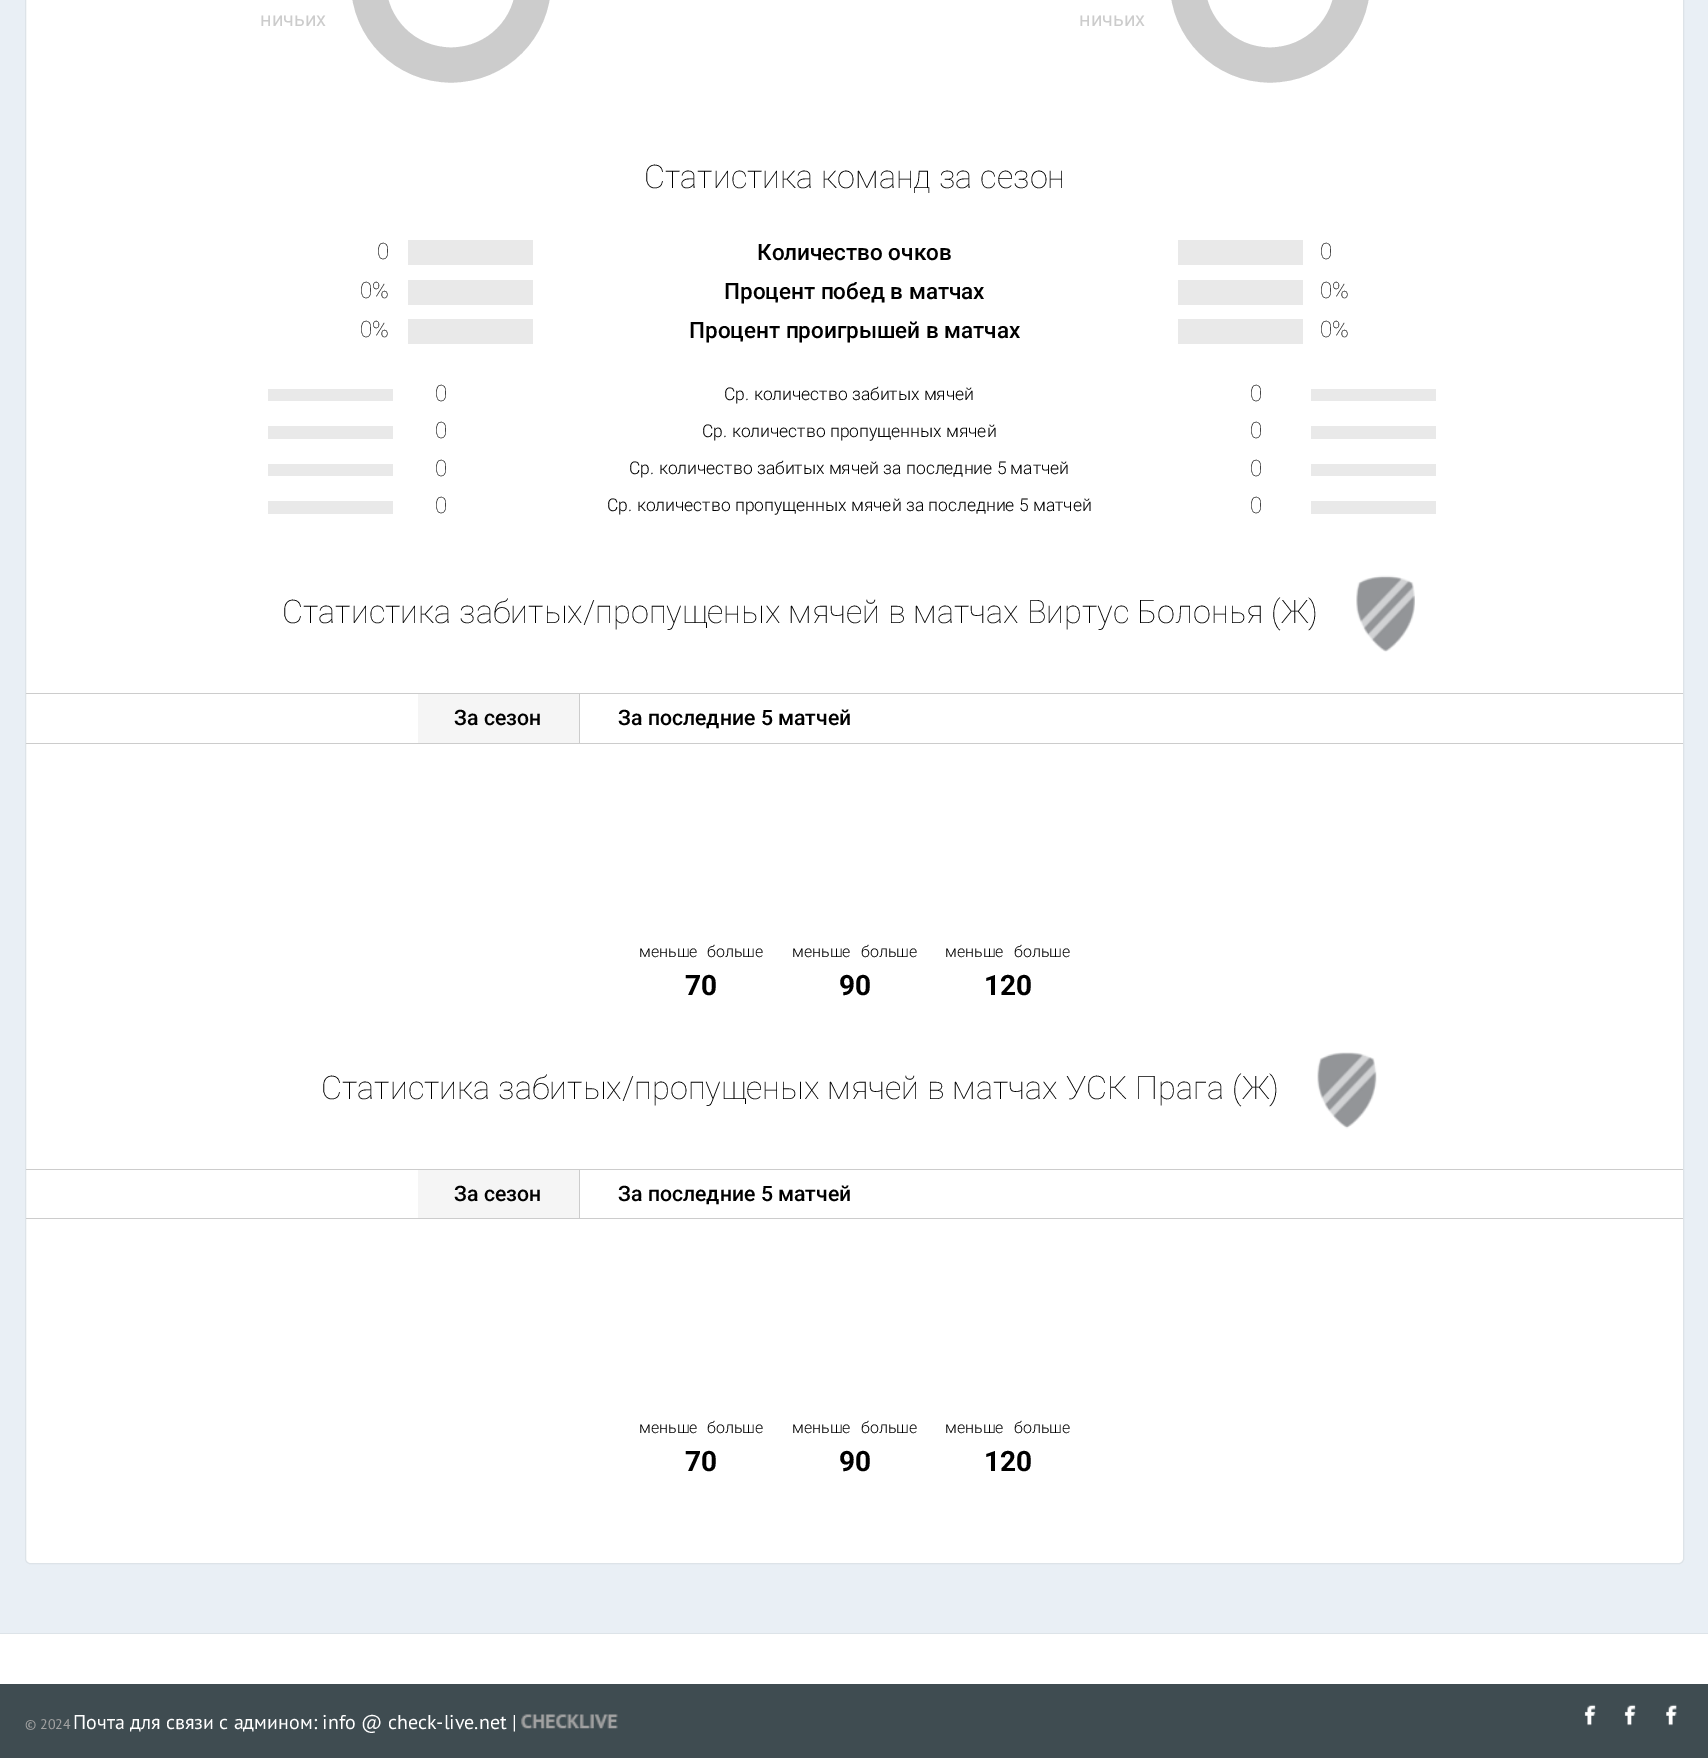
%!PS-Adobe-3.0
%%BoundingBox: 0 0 1708 1758
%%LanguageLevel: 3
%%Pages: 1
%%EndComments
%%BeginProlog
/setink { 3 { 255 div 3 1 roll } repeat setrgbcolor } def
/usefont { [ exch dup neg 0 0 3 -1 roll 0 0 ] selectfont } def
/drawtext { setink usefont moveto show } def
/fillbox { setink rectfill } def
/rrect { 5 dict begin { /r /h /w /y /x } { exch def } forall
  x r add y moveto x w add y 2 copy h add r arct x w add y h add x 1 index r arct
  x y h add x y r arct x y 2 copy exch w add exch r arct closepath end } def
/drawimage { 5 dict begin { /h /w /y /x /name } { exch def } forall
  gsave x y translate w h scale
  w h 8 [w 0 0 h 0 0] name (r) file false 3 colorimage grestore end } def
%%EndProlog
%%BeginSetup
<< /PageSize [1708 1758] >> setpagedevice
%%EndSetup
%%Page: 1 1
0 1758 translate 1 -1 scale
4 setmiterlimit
0 0 1708 1758 255 255 255 fillbox
0 0 1708 1633 233 239 245 fillbox
0 1633 1708 1 221 227 232 fillbox
255 255 255 setink
25.5 -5.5 1658 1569 4.5 rrect gsave fill grestore
221 227 232 setink
stroke
(ничьих) 260 26 /Roboto-Regular 20 204 204 204 drawtext
35 setlinewidth
533.5 -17.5 moveto 533.5 28 497 65 451 65 curveto 405.5 65 368.5 28 368.5 -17.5 curveto 368.5 -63.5 405.5 -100 451 -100 curveto 497 -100 533.5 -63.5 533.5 -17.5 curveto stroke
(ничьих) 1079 26 /Roboto-Regular 20 204 204 204 drawtext
1352.5 -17.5 moveto 1352.5 28 1315.5 65 1270 65 curveto 1224.5 65 1187.5 28 1187.5 -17.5 curveto 1187.5 -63.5 1224.5 -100 1270 -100 curveto 1315.5 -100 1352.5 -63.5 1352.5 -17.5 curveto stroke
(Статистика команд за сезон) 644 188 /Roboto-Thin 32.5 0 0 0 drawtext
(0) 377 259 /Roboto-Thin 22.5 0 0 0 drawtext
408 240 125 25 233 233 233 fillbox
(Количество очков) 757 260 /Roboto-Medium 22.5 0 0 0 drawtext
1178 240 125 25 233 233 233 fillbox
(0) 1320 259 /Roboto-Thin 22.5 0 0 0 drawtext
(0%) 360 298 /Roboto-Thin 22.5 0 0 0 drawtext
408 280 125 25 233 233 233 fillbox
(Процент побед в матчах) 724 299 /Roboto-Medium 22.5 0 0 0 drawtext
1178 280 125 25 233 233 233 fillbox
(0%) 1320 298 /Roboto-Thin 22.5 0 0 0 drawtext
(0%) 360 337 /Roboto-Thin 22.5 0 0 0 drawtext
408 319 125 25 233 233 233 fillbox
(Процент проигрышей в матчах) 689 338 /Roboto-Medium 22.5 0 0 0 drawtext
1178 319 125 25 233 233 233 fillbox
(0%) 1320 337 /Roboto-Thin 22.5 0 0 0 drawtext
268 389 125 12 233 233 233 fillbox
(0) 435 401 /Roboto-Thin 22.5 0 0 0 drawtext
(Ср. количество забитых мячей) 724 400 /Roboto-Light 17.5 0 0 0 drawtext
(0) 1250 401 /Roboto-Thin 22.5 0 0 0 drawtext
1311 389 125 12 233 233 233 fillbox
268 426 125 13 233 233 233 fillbox
(0) 435 438 /Roboto-Thin 22.5 0 0 0 drawtext
(Ср. количество пропущенных мячей) 702 437 /Roboto-Light 17.5 0 0 0 drawtext
(0) 1250 438 /Roboto-Thin 22.5 0 0 0 drawtext
1311 426 125 13 233 233 233 fillbox
268 464 125 12 233 233 233 fillbox
(0) 435 476 /Roboto-Thin 22.5 0 0 0 drawtext
(Ср. количество забитых мячей за последние 5 матчей) 629 474 /Roboto-Light 17.5 0 0 0 drawtext
(0) 1250 476 /Roboto-Thin 22.5 0 0 0 drawtext
1311 464 125 12 233 233 233 fillbox
268 501 125 13 233 233 233 fillbox
(0) 435 513 /Roboto-Thin 22.5 0 0 0 drawtext
(Ср. количество пропущенных мячей за последние 5 матчей) 607 511 /Roboto-Light 17.5 0 0 0 drawtext
(0) 1250 513 /Roboto-Thin 22.5 0 0 0 drawtext
1311 501 125 13 233 233 233 fillbox
(Статистика забитых/пропущеных мячей в матчах Виртус Болонья \(Ж\)) 282 623 /Roboto-Thin 32.5 0 0 0 drawtext
(assets/img1.rgb) 1356 575 59 77 drawimage
26 693 1657 1 204 204 204 fillbox
26 743 1657 1 204 204 204 fillbox
418 694 161 49 245 245 245 fillbox
(За сезон) 454 725 /Roboto-Medium 21.25 0 0 0 drawtext
579 694 1 49 204 204 204 fillbox
(За последние 5 матчей) 618 725 /Roboto-Medium 21.25 0 0 0 drawtext
(меньше) 639 957 /Roboto-Light 16 0 0 0 drawtext
(больше) 707 957 /Roboto-Light 16 0 0 0 drawtext
(70) 685 995 /Roboto-Bold 28 0 0 0 drawtext
(меньше) 792 957 /Roboto-Light 16 0 0 0 drawtext
(больше) 861 957 /Roboto-Light 16 0 0 0 drawtext
(90) 839 995 /Roboto-Bold 28 0 0 0 drawtext
(меньше) 945 957 /Roboto-Light 16 0 0 0 drawtext
(больше) 1014 957 /Roboto-Light 16 0 0 0 drawtext
(120) 984 995 /Roboto-Bold 28 0 0 0 drawtext
(Статистика забитых/пропущеных мячей в матчах УСК Прага \(Ж\)) 321 1099 /Roboto-Thin 32.5 0 0 0 drawtext
(assets/img2.rgb) 1317 1052 60 77 drawimage
26 1169 1657 1 204 204 204 fillbox
26 1218 1657 1 204 204 204 fillbox
418 1170 161 48 245 245 245 fillbox
(За сезон) 454 1201 /Roboto-Medium 21.25 0 0 0 drawtext
579 1170 1 48 204 204 204 fillbox
(За последние 5 матчей) 618 1201 /Roboto-Medium 21.25 0 0 0 drawtext
(меньше) 639 1433 /Roboto-Light 16 0 0 0 drawtext
(больше) 707 1433 /Roboto-Light 16 0 0 0 drawtext
(70) 685 1471 /Roboto-Bold 28 0 0 0 drawtext
(меньше) 792 1433 /Roboto-Light 16 0 0 0 drawtext
(больше) 861 1433 /Roboto-Light 16 0 0 0 drawtext
(90) 839 1471 /Roboto-Bold 28 0 0 0 drawtext
(меньше) 945 1433 /Roboto-Light 16 0 0 0 drawtext
(больше) 1014 1433 /Roboto-Light 16 0 0 0 drawtext
(120) 984 1471 /Roboto-Bold 28 0 0 0 drawtext
0 1684 1708 74 63 76 81 fillbox
(© 2024) 25 1729 /PTSans-Regular 14 162 162 162 drawtext
(Почта для связи с админом: info @ check-live.net |) 73 1729 /PTSans-Regular 20 255 255 255 drawtext
(assets/img3.rgb) 521 1714 97 15 drawimage
(assets/img4.rgb) 1584 1704 12 22 drawimage
(assets/img5.rgb) 1624 1704 12 22 drawimage
(assets/img6.rgb) 1666 1704 11 22 drawimage
showpage
%%EOF
